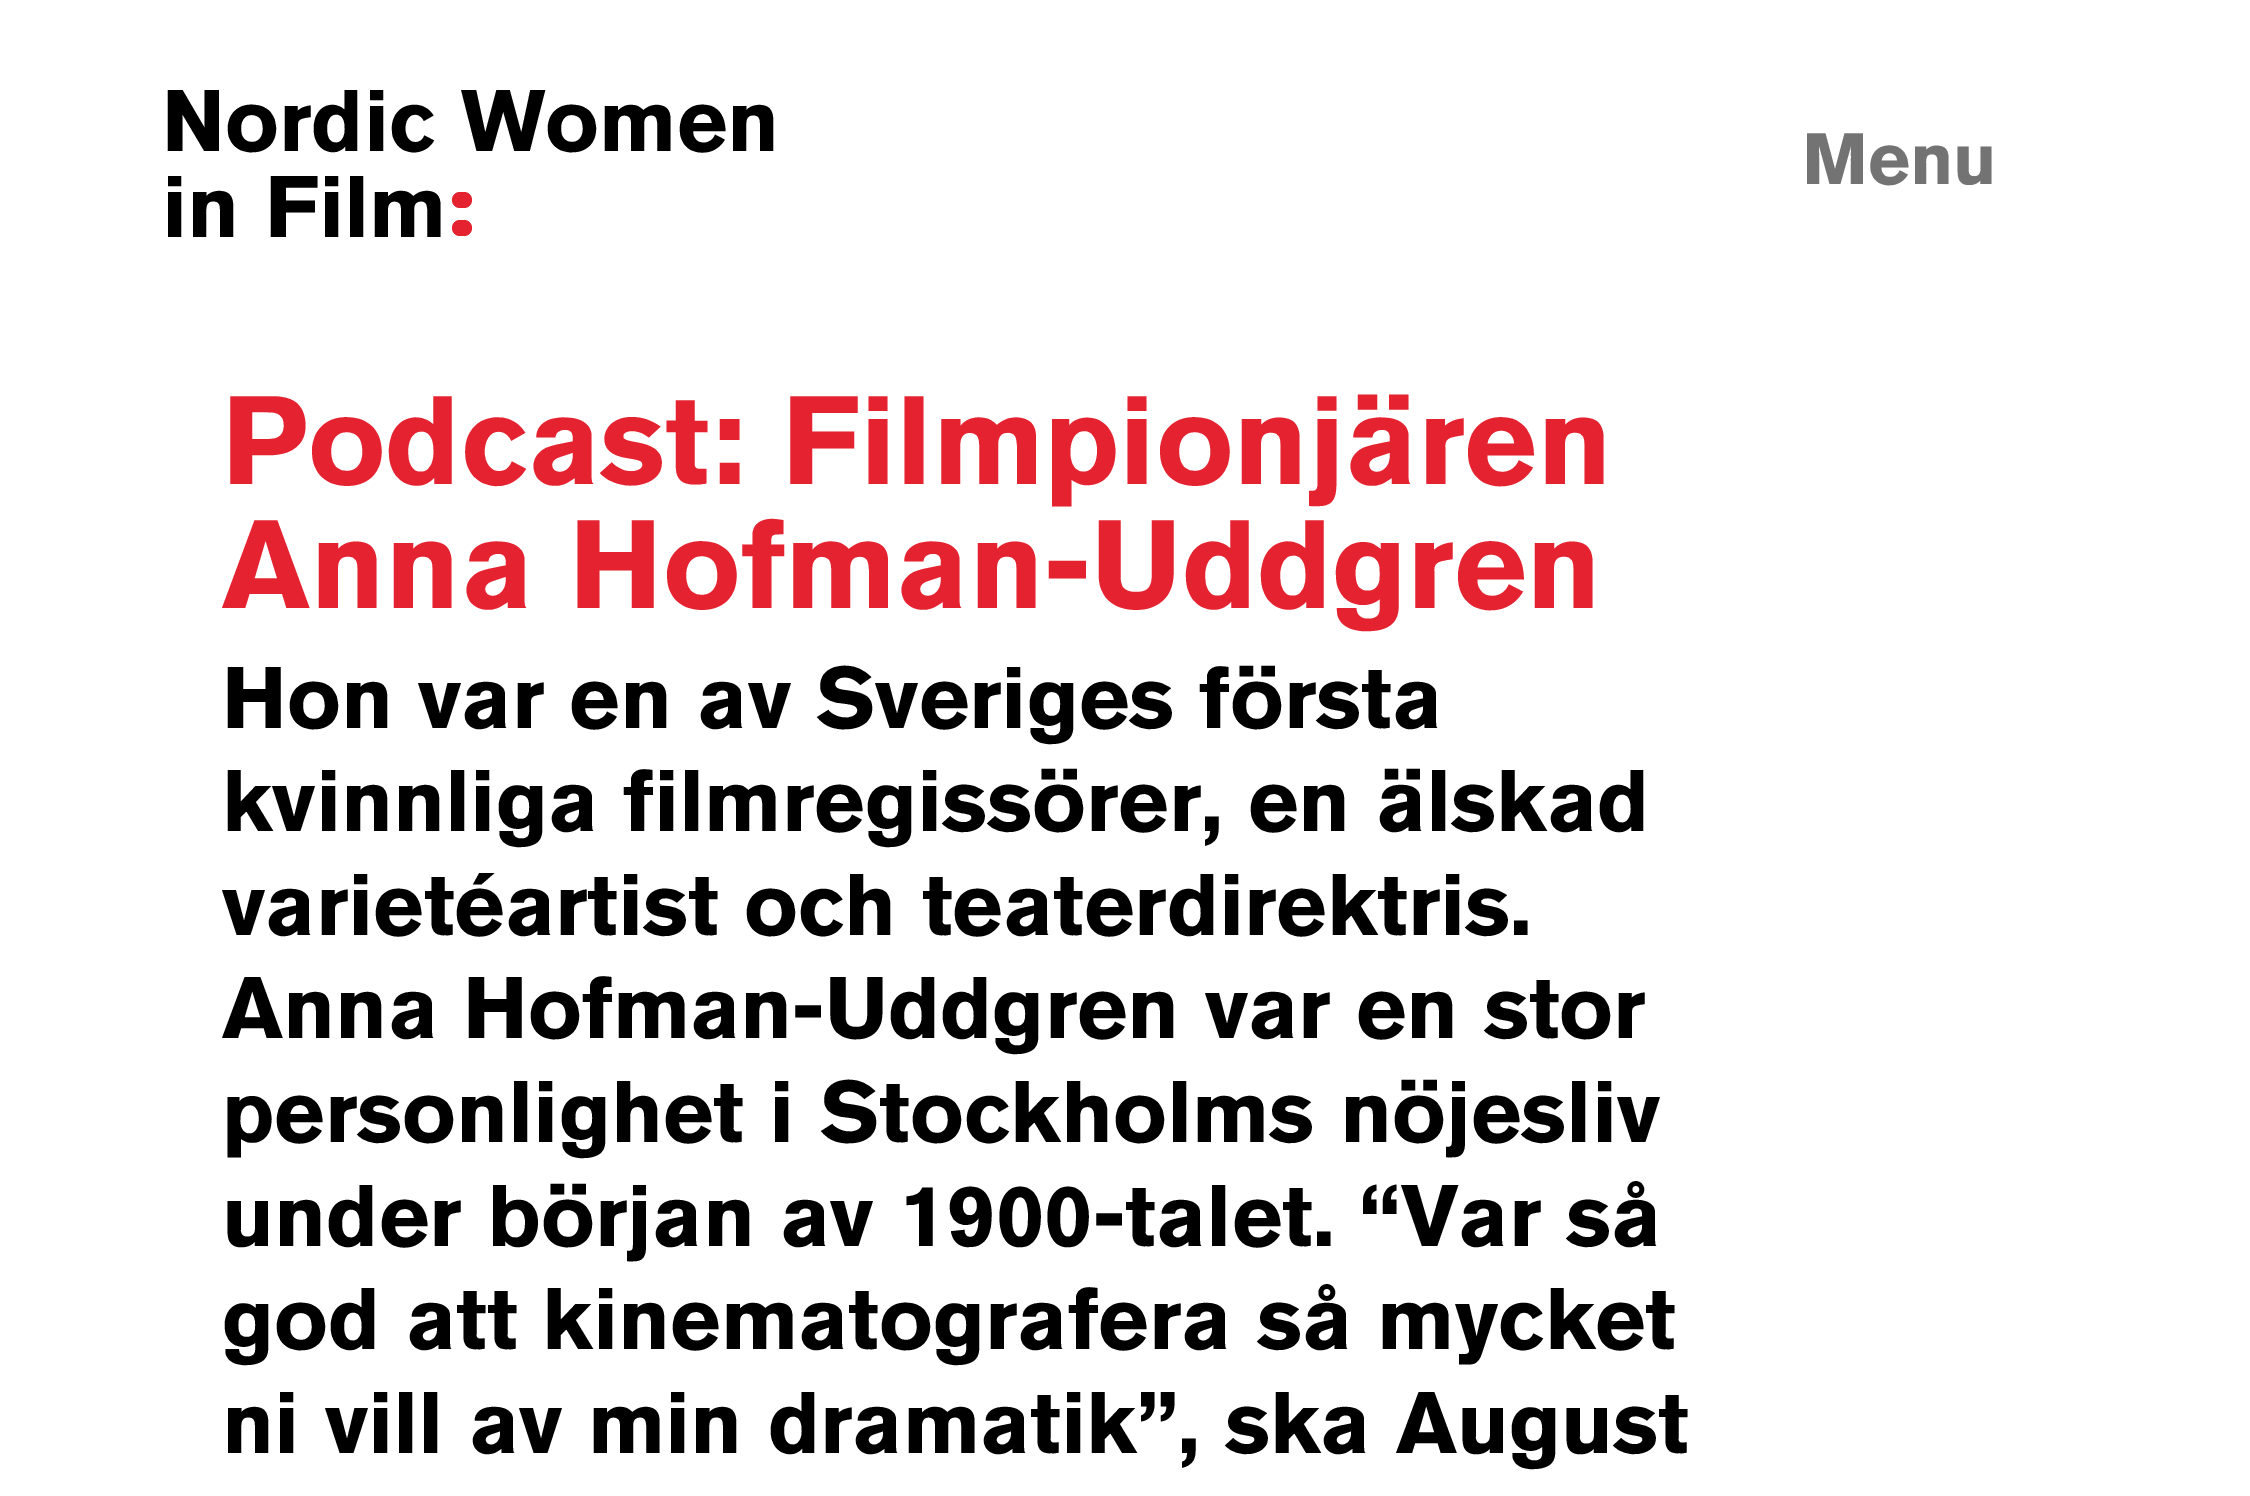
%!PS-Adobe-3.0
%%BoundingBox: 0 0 2250 1496
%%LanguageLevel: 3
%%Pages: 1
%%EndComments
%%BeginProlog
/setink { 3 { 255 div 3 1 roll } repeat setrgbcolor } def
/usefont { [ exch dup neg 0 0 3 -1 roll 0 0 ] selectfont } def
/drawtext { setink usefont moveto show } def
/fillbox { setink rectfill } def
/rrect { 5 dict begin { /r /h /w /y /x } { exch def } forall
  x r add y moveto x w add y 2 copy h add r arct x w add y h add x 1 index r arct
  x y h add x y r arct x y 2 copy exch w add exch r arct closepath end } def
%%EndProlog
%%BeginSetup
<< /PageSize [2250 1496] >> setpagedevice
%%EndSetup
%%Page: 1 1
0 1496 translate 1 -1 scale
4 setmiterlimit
0 0 2250 1496 255 255 255 fillbox
(Nordic Women) 162 151 /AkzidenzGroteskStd-Bold 86.4 0 0 0 drawtext
(in Film) 162 237 /AkzidenzGroteskStd-Bold 86.4 0 0 0 drawtext
229 35 48 setink
452 192 20 16 8 rrect fill
452 220 20 16 8 rrect fill
(Menu) 1802 184 /AkzidenzGroteskStd-Bold 72 115 115 115 drawtext
(Podcast: Filmpionjären) 222 484 /AkzidenzGroteskStd-Bold 124.5 229 35 48 drawtext
(Anna Hofman-Uddgren) 222 608 /AkzidenzGroteskStd-Bold 124.5 229 35 48 drawtext
(Hon var en av Sveriges första) 222 728 /AkzidenzGroteskStd-Bold 86.4 0 0 0 drawtext
(kvinnliga filmregissörer, en älskad) 222 831 /AkzidenzGroteskStd-Bold 86.4 0 0 0 drawtext
(varietéartist och teaterdirektris.) 222 935 /AkzidenzGroteskStd-Bold 86.4 0 0 0 drawtext
(Anna Hofman-Uddgren var en stor) 222 1038 /AkzidenzGroteskStd-Bold 86.4 0 0 0 drawtext
(personlighet i Stockholms nöjesliv) 222 1142 /AkzidenzGroteskStd-Bold 86.4 0 0 0 drawtext
(under början av 1900-talet. “Var så) 222 1246 /AkzidenzGroteskStd-Bold 86.4 0 0 0 drawtext
(god att kinematografera så mycket) 222 1349 /AkzidenzGroteskStd-Bold 86.4 0 0 0 drawtext
(ni vill av min dramatik”, ska August) 222 1453 /AkzidenzGroteskStd-Bold 86.4 0 0 0 drawtext
showpage
%%EOF
